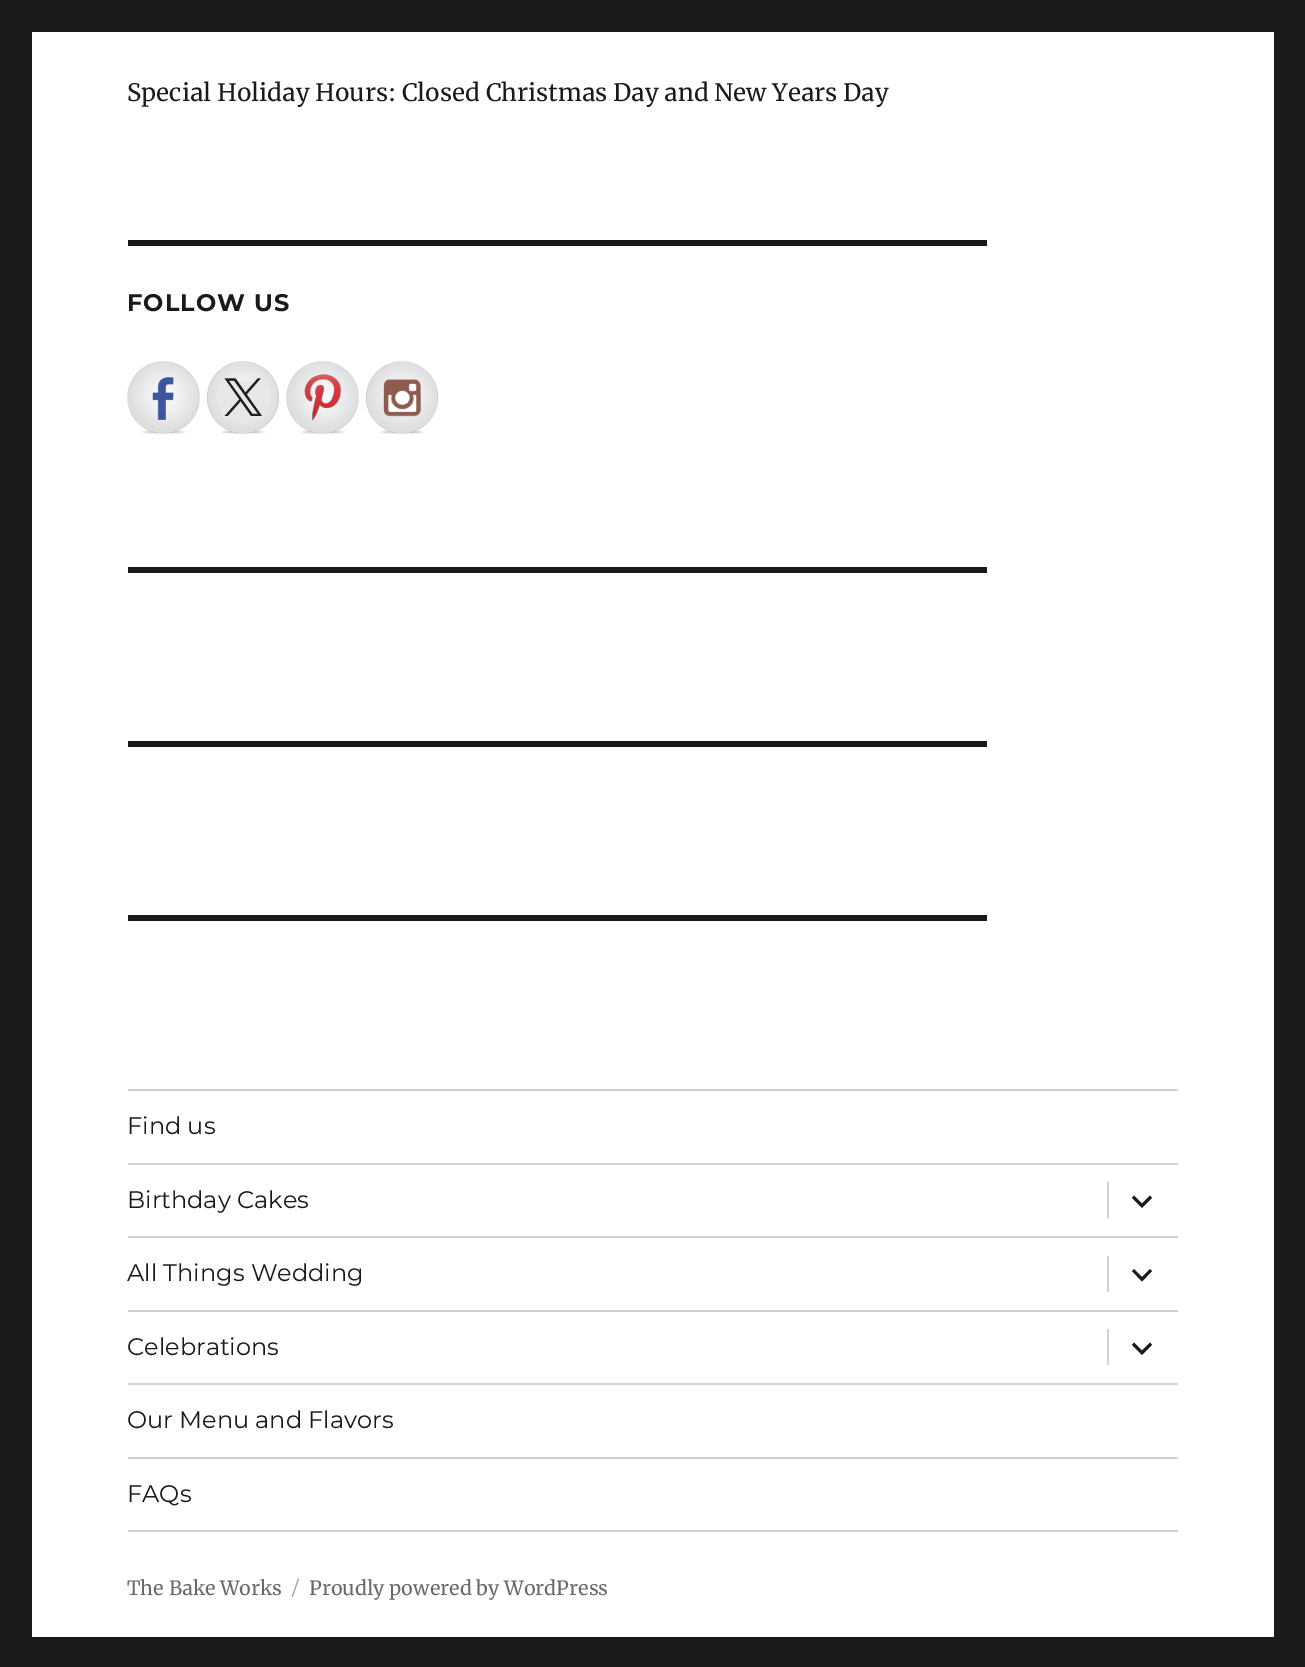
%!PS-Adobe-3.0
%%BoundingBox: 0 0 1305 1667
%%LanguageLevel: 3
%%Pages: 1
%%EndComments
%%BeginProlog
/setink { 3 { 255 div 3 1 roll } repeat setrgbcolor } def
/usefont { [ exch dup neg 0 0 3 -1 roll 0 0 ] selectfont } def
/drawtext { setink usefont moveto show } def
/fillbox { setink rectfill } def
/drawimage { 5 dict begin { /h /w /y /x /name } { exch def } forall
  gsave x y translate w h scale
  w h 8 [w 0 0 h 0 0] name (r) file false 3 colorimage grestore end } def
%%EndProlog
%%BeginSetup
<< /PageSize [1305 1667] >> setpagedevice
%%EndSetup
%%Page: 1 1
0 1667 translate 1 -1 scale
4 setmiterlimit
0 0 1305 1667 26 26 26 fillbox
32 32 1242 1605 255 255 255 fillbox
(Special Holiday Hours: Closed Christmas Day and New Years Day) 127 101 /Merriweather-Regular 24 26 26 26 drawtext
128 240 859 6 26 26 26 fillbox
/Montserrat-Thin 24 usefont
127 311 moveto 1.1 0 (FOLLOW US) ashow
(assets/img1.rgb) 127 361 73 73 drawimage
(assets/img2.rgb) 207 361 72 73 drawimage
(assets/img3.rgb) 286 361 73 73 drawimage
(assets/img4.rgb) 366 361 72 73 drawimage
128 567 859 6 26 26 26 fillbox
128 741 859 6 26 26 26 fillbox
128 915 859 6 26 26 26 fillbox
128 1530 1050 2 209 209 209 fillbox
128 1089 1050 2 209 209 209 fillbox
(Find us) 127 1134 /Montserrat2-Thin 24 26 26 26 drawtext
128 1163 1050 2 209 209 209 fillbox
(Birthday Cakes) 127 1208 /Montserrat2-Thin 24 26 26 26 drawtext
1107 1182 2 36 209 209 209 fillbox
26 26 26 setink
1150 1195.5 moveto 1152 1198 lineto 1142 1208 lineto 1132 1198 lineto 1134 1195.5 lineto 1142 1203.5 lineto closepath fill
128 1236 1050 2 209 209 209 fillbox
(All Things Wedding) 127 1281 /Montserrat2-Thin 24 26 26 26 drawtext
1107 1256 2 36 209 209 209 fillbox
26 26 26 setink
1150 1269 moveto 1152 1271 lineto 1142 1281.5 lineto 1132 1271 lineto 1134 1269 lineto 1142 1277 lineto closepath fill
128 1310 1050 2 209 209 209 fillbox
(Celebrations) 127 1355 /Montserrat2-Thin 24 26 26 26 drawtext
1107 1329 2 36 209 209 209 fillbox
26 26 26 setink
1150 1342.5 moveto 1152 1345 lineto 1142 1355 lineto 1132 1345 lineto 1134 1342.5 lineto 1142 1350.5 lineto closepath fill
128 1383 1050 2 209 209 209 fillbox
(Our Menu and Flavors) 127 1428 /Montserrat2-Thin 24 26 26 26 drawtext
128 1457 1050 2 209 209 209 fillbox
(FAQs) 127 1502 /Montserrat2-Thin 24 26 26 26 drawtext
(The Bake Works) 127 1595 /Merriweather-Regular 19.5 104 104 104 drawtext
(/) 292 1595 /Montserrat2-Thin 19.5 149 149 149 drawtext
(Proudly powered by WordPress) 309 1595 /Merriweather-Regular 19.5 104 104 104 drawtext
showpage
%%EOF
